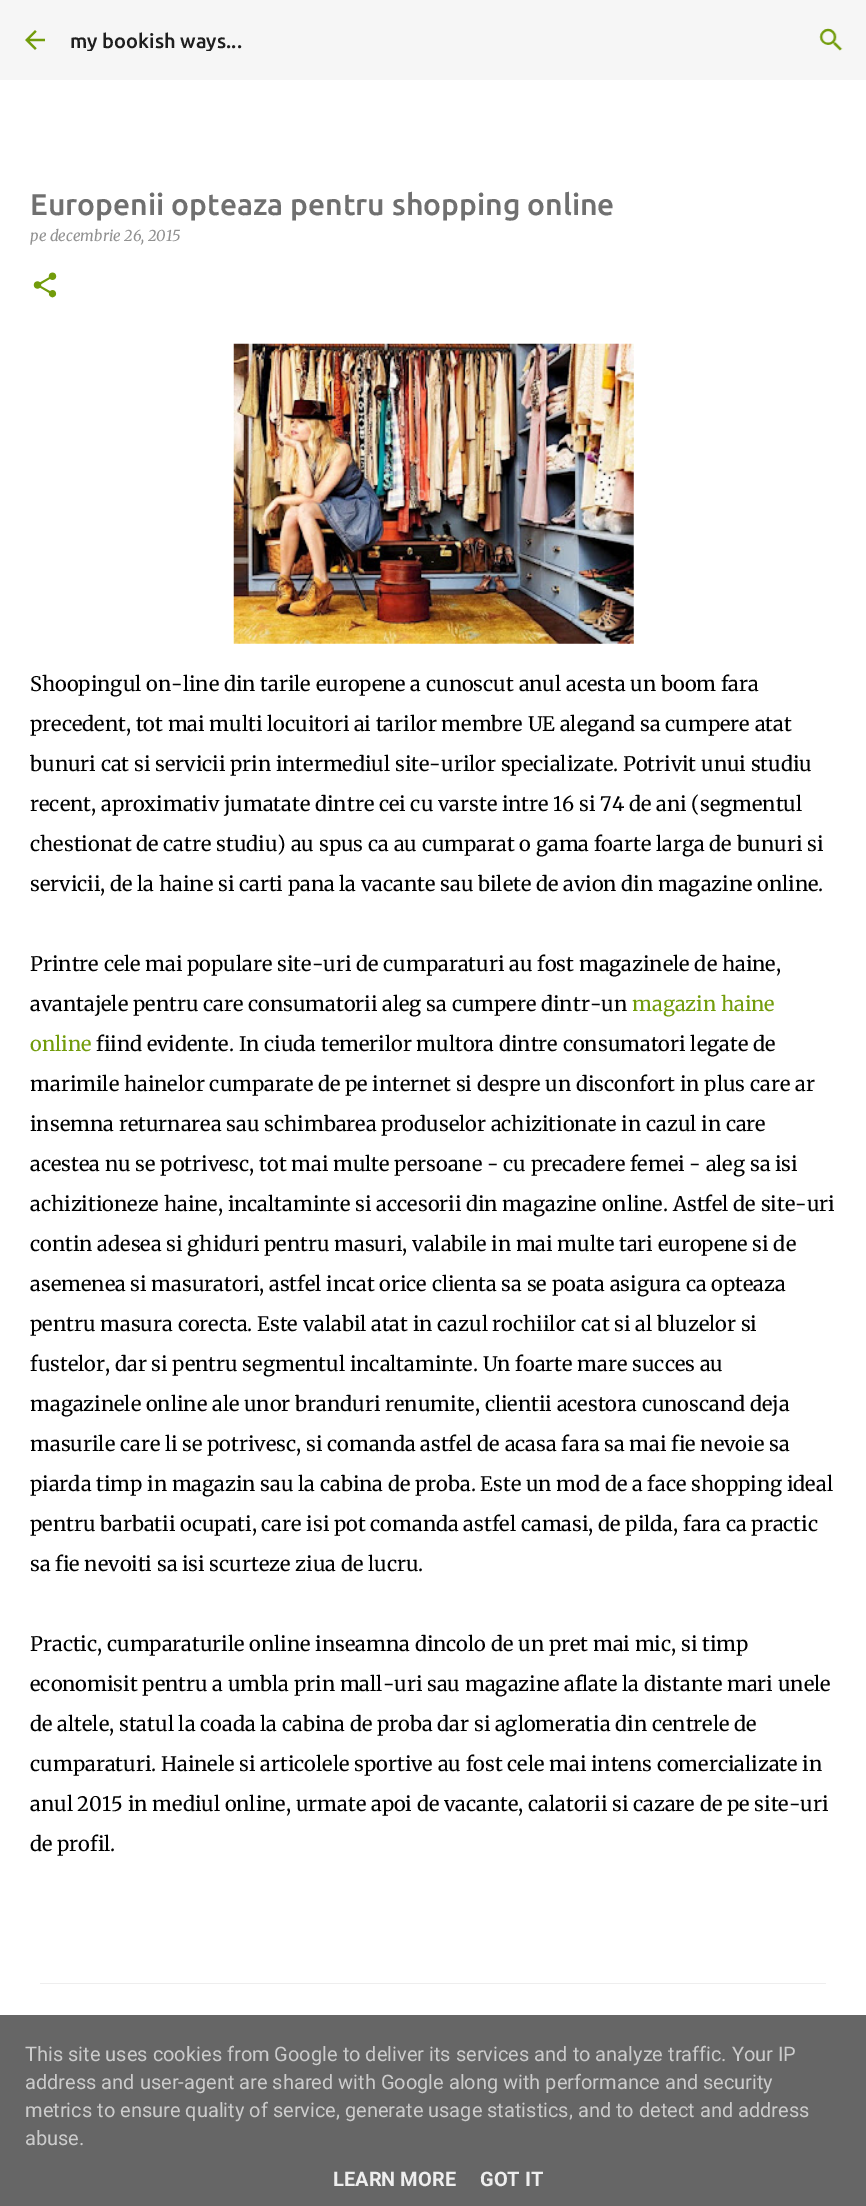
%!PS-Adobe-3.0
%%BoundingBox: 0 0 866 2206
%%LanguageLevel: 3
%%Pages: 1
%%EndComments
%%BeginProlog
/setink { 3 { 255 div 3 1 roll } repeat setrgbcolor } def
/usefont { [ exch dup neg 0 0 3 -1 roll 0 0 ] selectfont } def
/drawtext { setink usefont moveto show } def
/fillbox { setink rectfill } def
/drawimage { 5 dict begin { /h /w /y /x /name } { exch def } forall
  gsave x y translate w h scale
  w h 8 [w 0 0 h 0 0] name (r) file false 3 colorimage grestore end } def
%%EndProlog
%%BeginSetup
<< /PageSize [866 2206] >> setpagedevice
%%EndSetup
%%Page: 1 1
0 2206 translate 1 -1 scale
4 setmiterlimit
0 0 866 2206 255 255 255 fillbox
0 0 866 80 246 246 246 fillbox
(assets/img1.rgb) 25 30 20 20 drawimage
gsave
70 29 726 22 rectclip
(my bookish ways...) 70 48 /Ubuntu-Medium 20 31 31 31 drawtext
grestore
(assets/img2.rgb) 819 28 24 23 drawimage
(Europenii opteaza pentru shopping online) 30 215 /Ubuntu-Medium 30 112 112 112 drawtext
(pe decembrie 26, 2015) 30 241 /Merriweather-Italic 15 144 144 144 drawtext
(assets/img3.rgb) 33 272 24 26 drawimage
(assets/img4.rgb) 233 343 401 301 drawimage
(Shoopingul on-line din tarile europene a cunoscut anul acesta un boom fara) 30 691 /Merriweather-Light 20 0 0 0 drawtext
(precedent, tot mai multi locuitori ai tarilor membre UE alegand sa cumpere atat) 30 731 /Merriweather-Light 20 0 0 0 drawtext
(bunuri cat si servicii prin intermediul site-urilor specializate. Potrivit unui studiu) 30 771 /Merriweather-Light 20 0 0 0 drawtext
(recent, aproximativ jumatate dintre cei cu varste intre 16 si 74 de ani \(segmentul) 30 811 /Merriweather-Light 20 0 0 0 drawtext
(chestionat de catre studiu\) au spus ca au cumparat o gama foarte larga de bunuri si) 30 851 /Merriweather-Light 20 0 0 0 drawtext
(servicii, de la haine si carti pana la vacante sau bilete de avion din magazine online.) 30 891 /Merriweather-Light 20 0 0 0 drawtext
(Printre cele mai populare site-uri de cumparaturi au fost magazinele de haine,) 30 971 /Merriweather-Light 20 0 0 0 drawtext
(avantajele pentru care consumatorii aleg sa cumpere dintr-un) 30 1011 /Merriweather-Light 20 0 0 0 drawtext
(magazin haine) 632 1011 /Merriweather-Light 20 114 156 11 drawtext
(online) 30 1051 /Merriweather-Light 20 114 156 11 drawtext
(fiind evidente. In ciuda temerilor multora dintre consumatori legate de) 96 1051 /Merriweather-Light 20 0 0 0 drawtext
(marimile hainelor cumparate de pe internet si despre un disconfort in plus care ar) 30 1091 /Merriweather-Light 20 0 0 0 drawtext
(insemna returnarea sau schimbarea produselor achizitionate in cazul in care) 30 1131 /Merriweather-Light 20 0 0 0 drawtext
(acestea nu se potrivesc, tot mai multe persoane - cu precadere femei - aleg sa isi) 30 1171 /Merriweather-Light 20 0 0 0 drawtext
(achizitioneze haine, incaltaminte si accesorii din magazine online. Astfel de site-uri) 30 1211 /Merriweather-Light 20 0 0 0 drawtext
(contin adesea si ghiduri pentru masuri, valabile in mai multe tari europene si de) 30 1251 /Merriweather-Light 20 0 0 0 drawtext
(asemenea si masuratori, astfel incat orice clienta sa se poata asigura ca opteaza) 30 1291 /Merriweather-Light 20 0 0 0 drawtext
(pentru masura corecta. Este valabil atat in cazul rochiilor cat si al bluzelor si) 30 1331 /Merriweather-Light 20 0 0 0 drawtext
(fustelor, dar si pentru segmentul incaltaminte. Un foarte mare succes au) 30 1371 /Merriweather-Light 20 0 0 0 drawtext
(magazinele online ale unor branduri renumite, clientii acestora cunoscand deja) 30 1411 /Merriweather-Light 20 0 0 0 drawtext
(masurile care li se potrivesc, si comanda astfel de acasa fara sa mai fie nevoie sa) 30 1451 /Merriweather-Light 20 0 0 0 drawtext
(piarda timp in magazin sau la cabina de proba. Este un mod de a face shopping ideal) 30 1491 /Merriweather-Light 20 0 0 0 drawtext
(pentru barbatii ocupati, care isi pot comanda astfel camasi, de pilda, fara ca practic) 30 1531 /Merriweather-Light 20 0 0 0 drawtext
(sa fie nevoiti sa isi scurteze ziua de lucru.) 30 1571 /Merriweather-Light 20 0 0 0 drawtext
(Practic, cumparaturile online inseamna dincolo de un pret mai mic, si timp) 30 1651 /Merriweather-Light 20 0 0 0 drawtext
(economisit pentru a umbla prin mall-uri sau magazine aflate la distante mari unele) 30 1691 /Merriweather-Light 20 0 0 0 drawtext
(de altele, statul la coada la cabina de proba dar si aglomeratia din centrele de) 30 1731 /Merriweather-Light 20 0 0 0 drawtext
(cumparaturi. Hainele si articolele sportive au fost cele mai intens comercializate in) 30 1771 /Merriweather-Light 20 0 0 0 drawtext
(anul 2015 in mediul online, urmate apoi de vacante, calatorii si cazare de pe site-uri) 30 1811 /Merriweather-Light 20 0 0 0 drawtext
(de profil.) 30 1851 /Merriweather-Light 20 0 0 0 drawtext
40 1983 786 1 238 238 238 fillbox
0 2015 866 191 102 102 102 fillbox
(This site uses cookies from Google to deliver its services and to analyze traffic. Your IP) 25 2061 /Roboto-Regular 20 204 204 204 drawtext
(address and user-agent are shared with Google along with performance and security) 25 2089 /Roboto-Regular 20 204 204 204 drawtext
(metrics to ensure quality of service, generate usage statistics, and to detect and address) 25 2117 /Roboto-Regular 20 204 204 204 drawtext
(abuse.) 25 2145 /Roboto-Regular 20 204 204 204 drawtext
(LEARN MORE) 333 2186 /Roboto-Bold 20 238 238 238 drawtext
(GOT IT) 480 2186 /Roboto-Bold 20 238 238 238 drawtext
showpage
%%EOF
